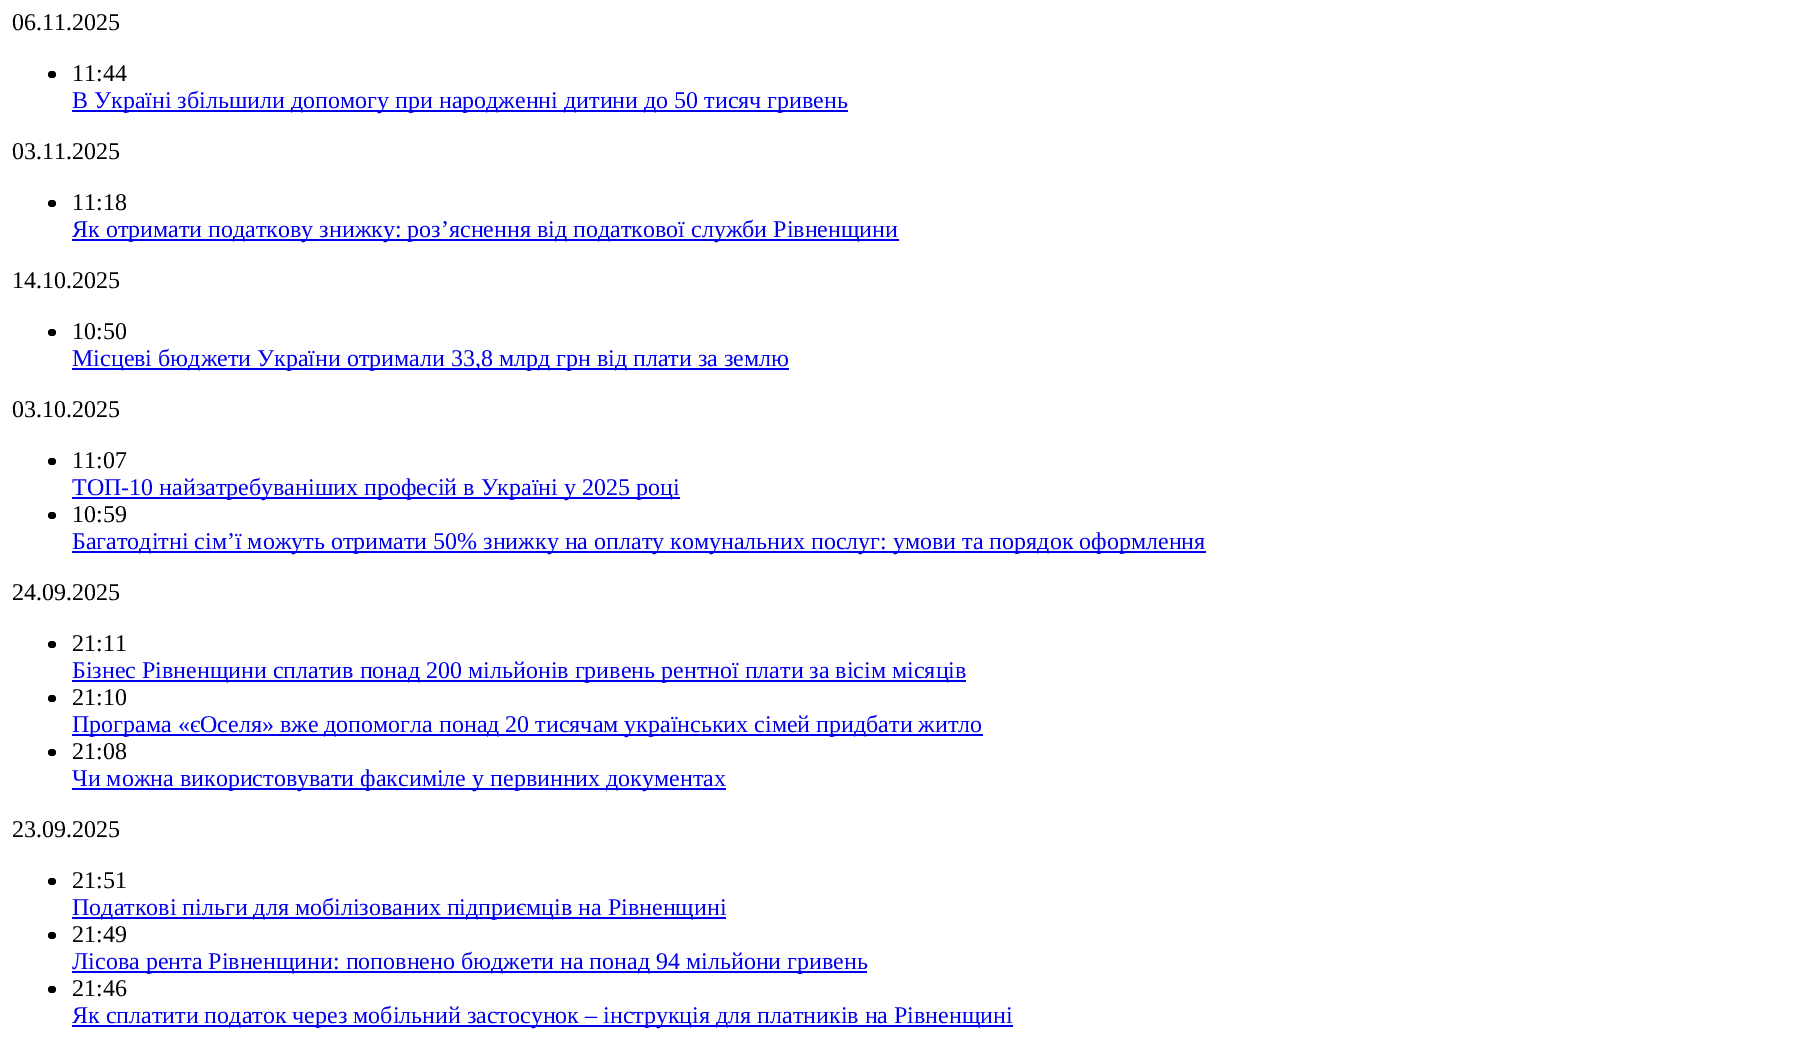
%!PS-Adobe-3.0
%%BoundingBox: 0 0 1820 1044
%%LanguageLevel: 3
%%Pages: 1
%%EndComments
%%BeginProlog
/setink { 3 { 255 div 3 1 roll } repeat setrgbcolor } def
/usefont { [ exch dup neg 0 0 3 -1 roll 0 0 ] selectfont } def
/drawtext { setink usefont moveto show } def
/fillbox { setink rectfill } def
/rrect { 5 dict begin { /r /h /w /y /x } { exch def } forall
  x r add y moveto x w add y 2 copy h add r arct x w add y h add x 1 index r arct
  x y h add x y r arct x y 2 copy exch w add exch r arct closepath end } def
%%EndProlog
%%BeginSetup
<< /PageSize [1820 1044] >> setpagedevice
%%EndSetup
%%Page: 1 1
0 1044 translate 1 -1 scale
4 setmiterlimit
0 0 1820 1044 255 255 255 fillbox
(06.11.2025) 12 30 /LiberationSerif-Regular 24 0 0 0 drawtext
48 71 8 7 3.5 rrect fill
(11:44) 72 81 /LiberationSerif-Regular 24 0 0 0 drawtext
72 110 776 2 0 0 238 fillbox
(В Україні збільшили допомогу при народженні дитини до 50 тисяч гривень) 72 108 /LiberationSerif-Regular 24 0 0 238 drawtext
(03.11.2025) 12 159 /LiberationSerif-Regular 24 0 0 0 drawtext
48 200 8 7 3.5 rrect fill
(11:18) 72 210 /LiberationSerif-Regular 24 0 0 0 drawtext
72 239 827 2 0 0 238 fillbox
(Як отримати податкову знижку: роз’яснення від податкової служби Рівненщини) 72 237 /LiberationSerif-Regular 24 0 0 238 drawtext
(14.10.2025) 12 288 /LiberationSerif-Regular 24 0 0 0 drawtext
48 329 8 7 3.5 rrect fill
(10:50) 72 339 /LiberationSerif-Regular 24 0 0 0 drawtext
72 368 717 2 0 0 238 fillbox
(Місцеві бюджети України отримали 33,8 млрд грн від плати за землю) 72 366 /LiberationSerif-Regular 24 0 0 238 drawtext
(03.10.2025) 12 417 /LiberationSerif-Regular 24 0 0 0 drawtext
48 458 8 7 3.5 rrect fill
(11:07) 72 468 /LiberationSerif-Regular 24 0 0 0 drawtext
72 497 608 2 0 0 238 fillbox
(ТОП-10 найзатребуваніших професій в Україні у 2025 році) 72 495 /LiberationSerif-Regular 24 0 0 238 drawtext
0 0 0 setink
48 512 8 7 3.5 rrect fill
(10:59) 72 522 /LiberationSerif-Regular 24 0 0 0 drawtext
72 551 1134 2 0 0 238 fillbox
(Багатодітні сім’ї можуть отримати 50% знижку на оплату комунальних послуг: умови та порядок оформлення) 72 549 /LiberationSerif-Regular 24 0 0 238 drawtext
(24.09.2025) 12 600 /LiberationSerif-Regular 24 0 0 0 drawtext
48 641 8 7 3.5 rrect fill
(21:11) 72 651 /LiberationSerif-Regular 24 0 0 0 drawtext
72 680 894 2 0 0 238 fillbox
(Бізнес Рівненщини сплатив понад 200 мільйонів гривень рентної плати за вісім місяців) 72 678 /LiberationSerif-Regular 24 0 0 238 drawtext
0 0 0 setink
48 695 8 7 3.5 rrect fill
(21:10) 72 705 /LiberationSerif-Regular 24 0 0 0 drawtext
72 734 911 2 0 0 238 fillbox
(Програма «єОселя» вже допомогла понад 20 тисячам українських сімей придбати житло) 72 732 /LiberationSerif-Regular 24 0 0 238 drawtext
0 0 0 setink
48 749 8 7 3.5 rrect fill
(21:08) 72 759 /LiberationSerif-Regular 24 0 0 0 drawtext
72 788 654 2 0 0 238 fillbox
(Чи можна використовувати факсиміле у первинних документах) 72 786 /LiberationSerif-Regular 24 0 0 238 drawtext
(23.09.2025) 12 837 /LiberationSerif-Regular 24 0 0 0 drawtext
48 878 8 7 3.5 rrect fill
(21:51) 72 888 /LiberationSerif-Regular 24 0 0 0 drawtext
72 917 654 2 0 0 238 fillbox
(Податкові пільги для мобілізованих підприємців на Рівненщині) 72 915 /LiberationSerif-Regular 24 0 0 238 drawtext
0 0 0 setink
48 932 8 7 3.5 rrect fill
(21:49) 72 942 /LiberationSerif-Regular 24 0 0 0 drawtext
72 971 795 2 0 0 238 fillbox
(Лісова рента Рівненщини: поповнено бюджети на понад 94 мільйони гривень) 72 969 /LiberationSerif-Regular 24 0 0 238 drawtext
0 0 0 setink
48 986 8 7 3.5 rrect fill
(21:46) 72 996 /LiberationSerif-Regular 24 0 0 0 drawtext
72 1025 941 2 0 0 238 fillbox
(Як сплатити податок через мобільний застосунок – інструкція для платників на Рівненщині) 72 1023 /LiberationSerif-Regular 24 0 0 238 drawtext
showpage
%%EOF
